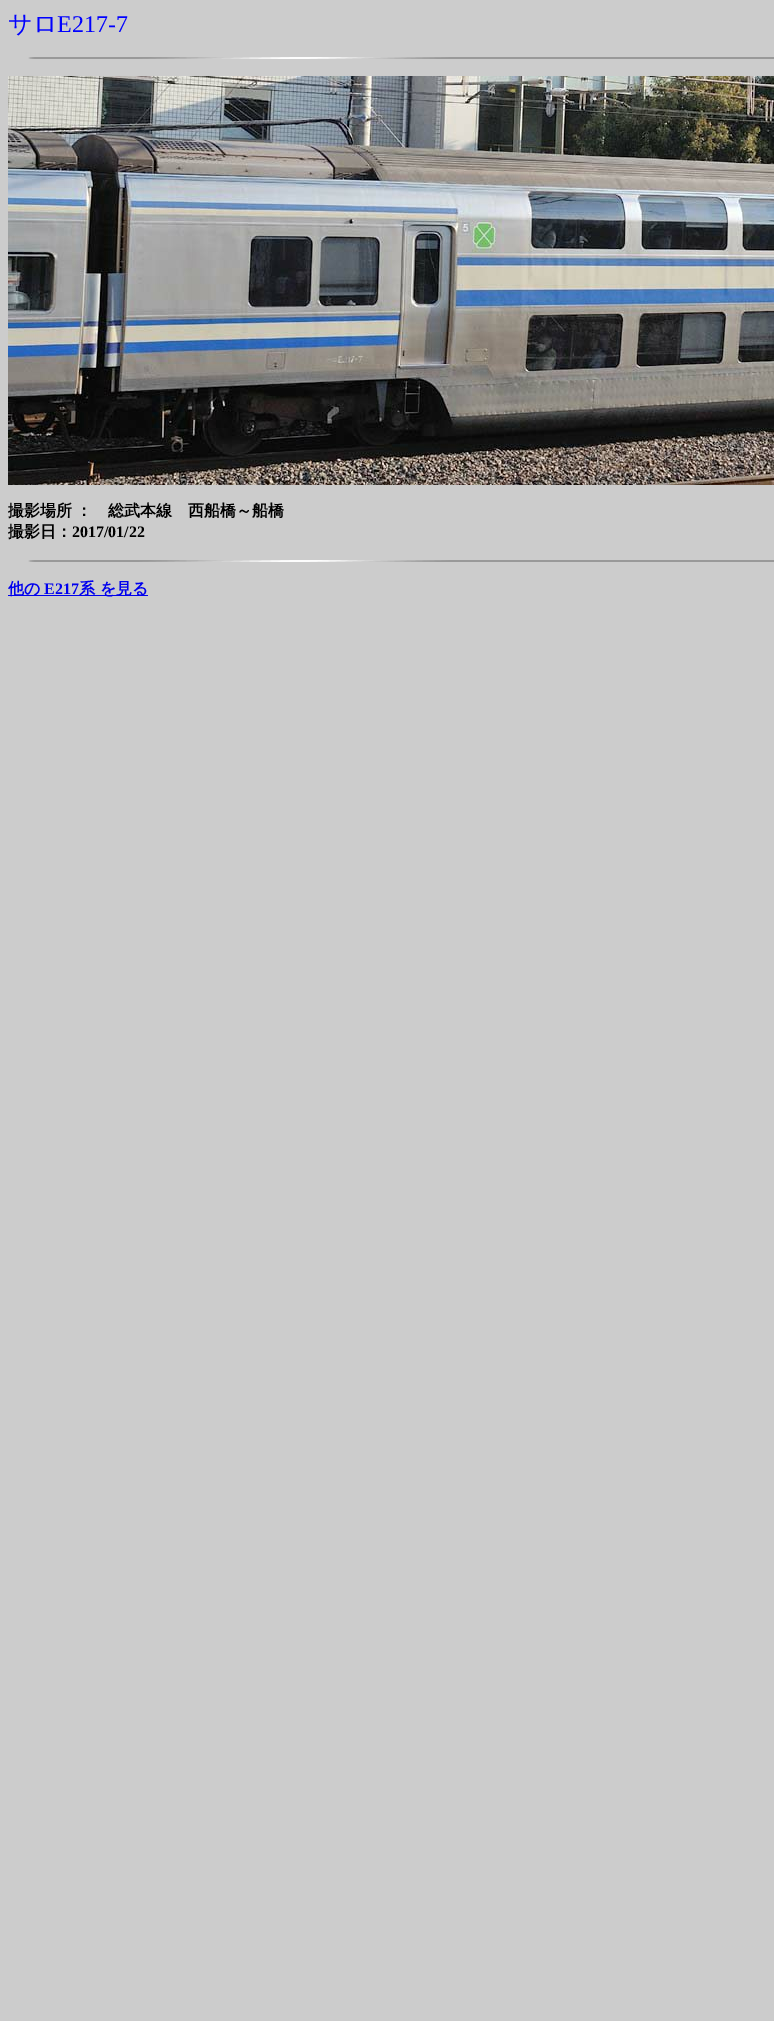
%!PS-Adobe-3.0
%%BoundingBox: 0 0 774 2021
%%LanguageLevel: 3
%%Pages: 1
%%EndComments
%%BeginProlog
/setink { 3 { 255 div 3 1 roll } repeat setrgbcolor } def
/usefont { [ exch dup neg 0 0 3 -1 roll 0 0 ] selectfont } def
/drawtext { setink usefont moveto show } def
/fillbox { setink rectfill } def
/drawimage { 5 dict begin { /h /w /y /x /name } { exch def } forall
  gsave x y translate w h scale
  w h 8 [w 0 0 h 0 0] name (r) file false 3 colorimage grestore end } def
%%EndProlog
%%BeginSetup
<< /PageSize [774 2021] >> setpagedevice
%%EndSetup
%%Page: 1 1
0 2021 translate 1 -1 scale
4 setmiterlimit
0 0 774 2021 204 204 204 fillbox
(サロ) 8 32 /WenQuanYiZenHei-Medium 24 0 0 255 drawtext
(E217-7) 57 32 /LiberationSerif-Regular 24 0 0 255 drawtext
(assets/img1.rgb) 28 57 746 2 drawimage
(assets/img2.rgb) 8 76 766 409 drawimage
/WenQuanYiZenHei-Bold 16 usefont
0 0 0 setink
8 516 moveto -1 0 32 (撮影場所 ：　総武本線　西船橋～船橋) widthshow
(撮影日：) 8 537 /WenQuanYiZenHei-Bold 16 0 0 0 drawtext
(2017/01/22) 72 537 /LiberationSerif-Bold 16 0 0 0 drawtext
(assets/img1.rgb) 28 560 746 2 drawimage
8 595 140 1 0 0 238 fillbox
(他の) 8 594 /WenQuanYiZenHei-Bold 16 0 0 238 drawtext
(E217) 44 594 /LiberationSerif-Bold 16 0 0 238 drawtext
(系 を見る) 79 594 /WenQuanYiZenHei-Bold 16 0 0 238 drawtext
showpage
%%EOF
